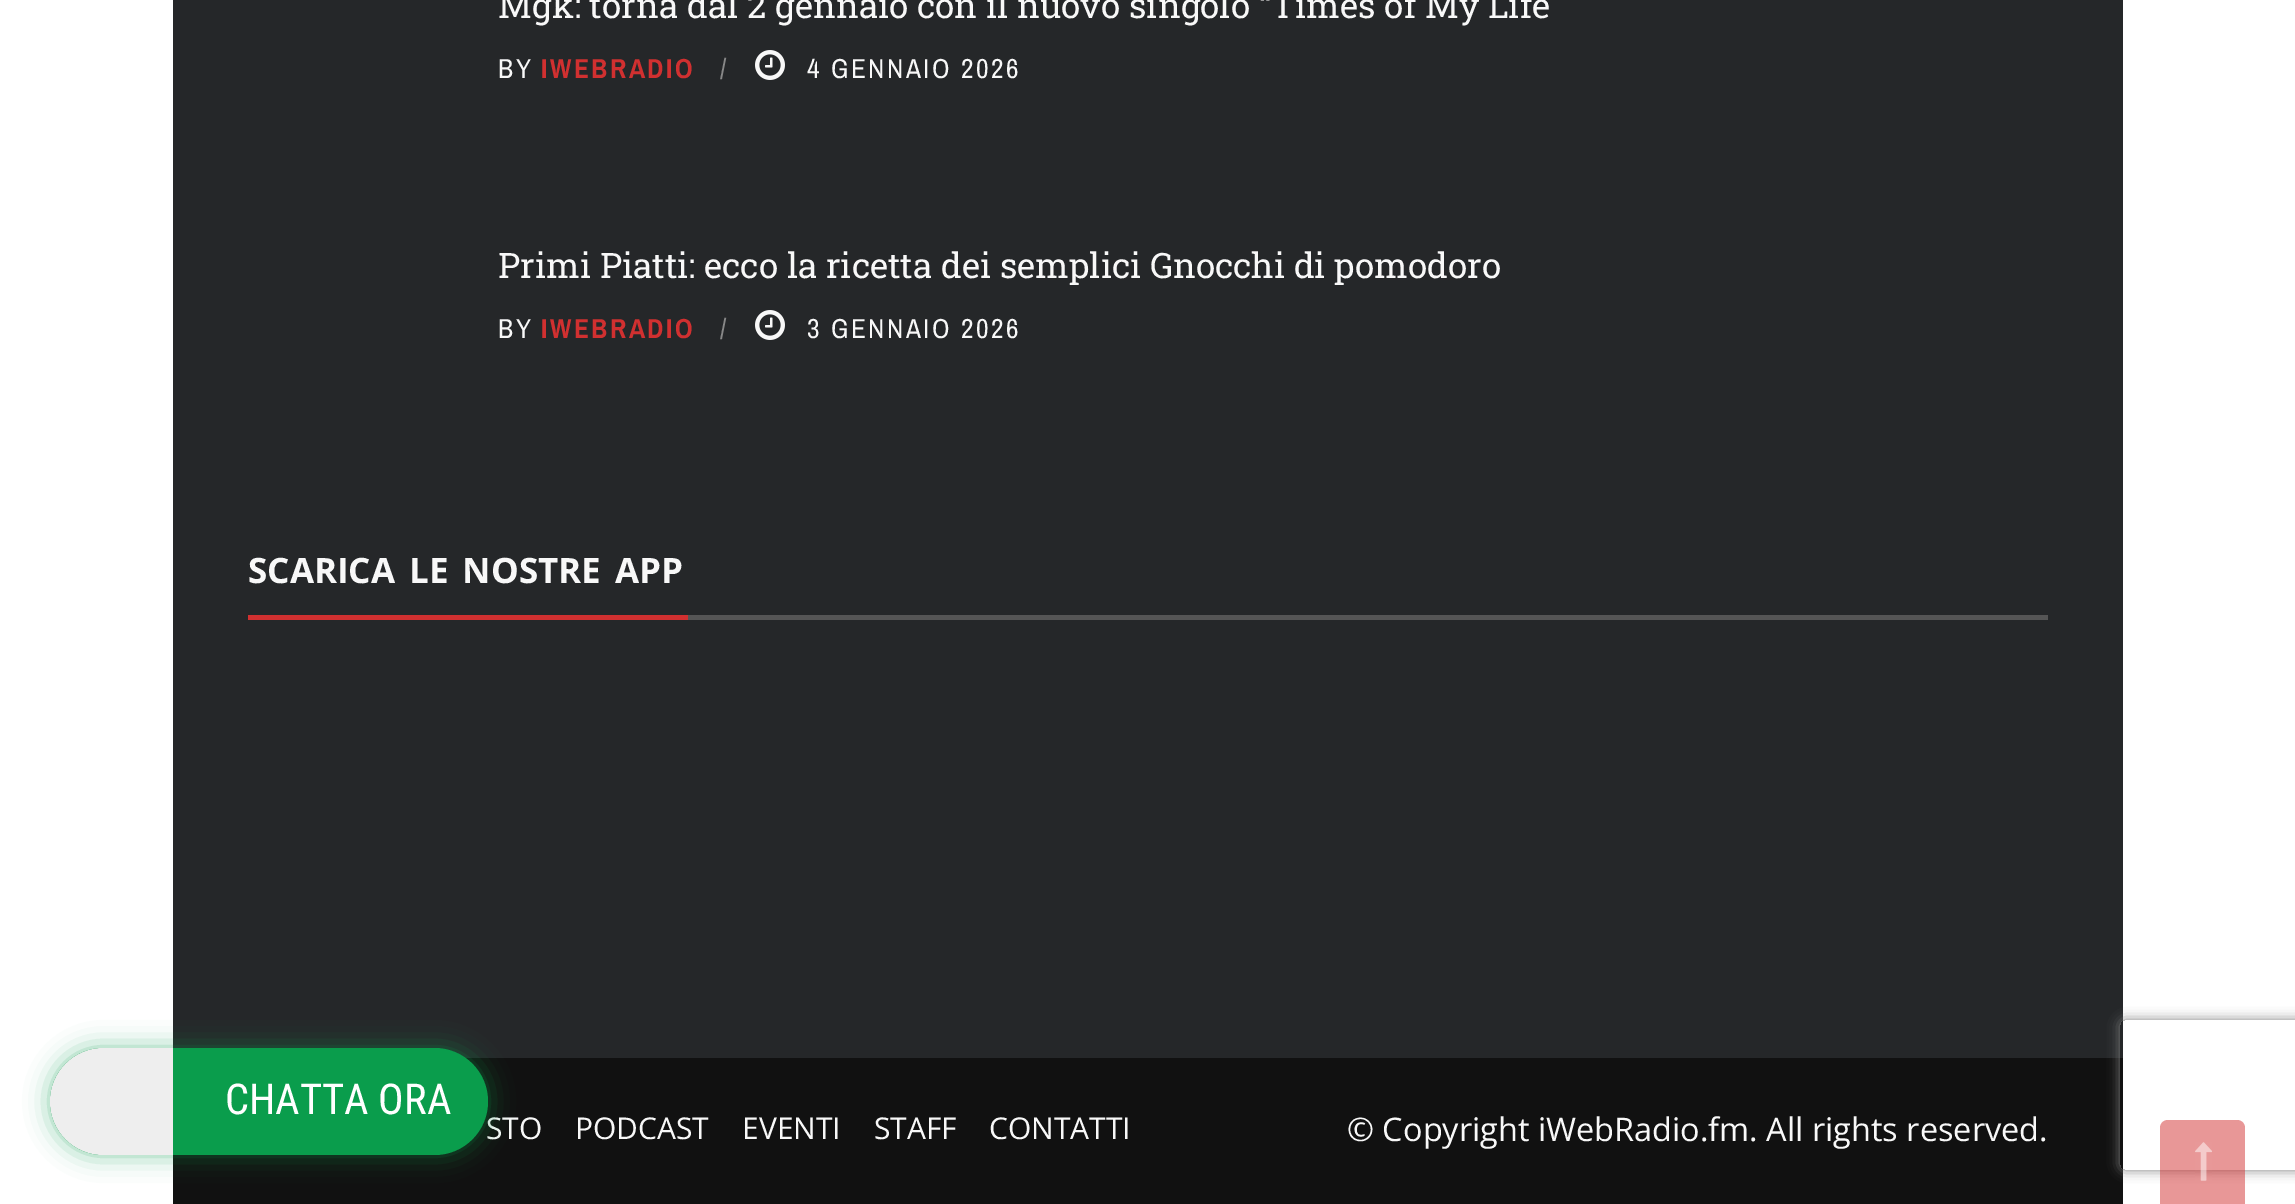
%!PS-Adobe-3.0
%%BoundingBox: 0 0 2295 1204
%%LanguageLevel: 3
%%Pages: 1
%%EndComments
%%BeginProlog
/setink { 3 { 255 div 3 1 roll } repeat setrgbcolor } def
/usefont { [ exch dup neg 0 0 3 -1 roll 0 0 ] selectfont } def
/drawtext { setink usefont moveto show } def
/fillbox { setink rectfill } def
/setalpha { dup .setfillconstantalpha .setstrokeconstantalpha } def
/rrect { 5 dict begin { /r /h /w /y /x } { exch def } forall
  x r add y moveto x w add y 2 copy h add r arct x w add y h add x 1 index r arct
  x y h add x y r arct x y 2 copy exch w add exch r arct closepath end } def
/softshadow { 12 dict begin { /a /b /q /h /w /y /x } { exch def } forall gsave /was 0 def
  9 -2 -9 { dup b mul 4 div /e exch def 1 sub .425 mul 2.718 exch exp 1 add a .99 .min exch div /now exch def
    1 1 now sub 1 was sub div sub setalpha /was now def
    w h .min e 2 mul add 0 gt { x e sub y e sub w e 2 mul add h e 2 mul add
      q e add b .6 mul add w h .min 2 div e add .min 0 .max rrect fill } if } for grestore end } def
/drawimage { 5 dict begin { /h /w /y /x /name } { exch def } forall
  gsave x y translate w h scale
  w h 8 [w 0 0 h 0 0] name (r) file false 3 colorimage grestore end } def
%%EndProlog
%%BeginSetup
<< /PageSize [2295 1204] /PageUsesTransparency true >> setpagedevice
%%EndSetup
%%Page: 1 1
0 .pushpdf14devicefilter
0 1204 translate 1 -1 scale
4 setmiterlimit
0 0 2295 1204 255 255 255 fillbox
173 0 1950 1058 37 39 41 fillbox
(Mgk: torna dal 2 gennaio con il nuovo singolo “Times of My Life) 498 18 /RobotoSlab-Regular 35 248 248 248 drawtext
/ArchivoNarrow-Regular 27.5 usefont
498 78 moveto 2.5 0 (BY) ashow
/ArchivoNarrow-Bold 27.5 usefont
209 48 48 setink
541 78 moveto 2.5 0 (IWEBRADIO) ashow
/ArchivoNarrow-Regular 27.5 usefont
136 136 136 setink
720 78 moveto 2.5 0 (/) ashow
(assets/img1.rgb) 755 50 30 30 drawimage
248 248 248 setink
807 78 moveto 2.5 0 (4 GENNAIO 2026) ashow
(Primi Piatti: ecco la ricetta dei semplici Gnocchi di pomodoro) 498 278 /RobotoSlab-Regular 35 248 248 248 drawtext
/ArchivoNarrow-Regular 27.5 usefont
498 338 moveto 2.5 0 (BY) ashow
/ArchivoNarrow-Bold 27.5 usefont
209 48 48 setink
541 338 moveto 2.5 0 (IWEBRADIO) ashow
/ArchivoNarrow-Regular 27.5 usefont
136 136 136 setink
720 338 moveto 2.5 0 (/) ashow
(assets/img1.rgb) 755 310 30 30 drawimage
248 248 248 setink
807 338 moveto 2.5 0 (3 GENNAIO 2026) ashow
248 615 440 5 209 48 48 fillbox
/OpenSans-Bold 35 usefont
248 248 248 setink
248 583 moveto 5 0 32 (SCARICA LE NOSTRE APP) widthshow
688 615 1360 5 85 85 85 fillbox
173 1058 1950 146 17 17 17 fillbox
(STO) 486 1139 /OpenSans-Regular 30 248 248 248 drawtext
(PODCAST) 575 1139 /OpenSans-Regular 30 248 248 248 drawtext
(EVENTI) 742 1139 /OpenSans-Regular 30 248 248 248 drawtext
(STAFF) 874 1139 /OpenSans-Regular 30 248 248 248 drawtext
(CONTATTI) 989 1139 /OpenSans-Regular 30 248 248 248 drawtext
(© Copyright iWebRadio.fm. All rights reserved.) 1347 1141 /OpenSans-Regular 32.5 248 248 248 drawtext
gsave
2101 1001 moveto 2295 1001 lineto 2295 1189 lineto 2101 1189 lineto closepath 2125 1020 moveto 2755 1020 lineto 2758 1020 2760 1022 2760 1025 curveto 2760 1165 lineto 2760 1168 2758 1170 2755 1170 curveto 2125 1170 lineto 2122 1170 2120 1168 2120 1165 curveto 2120 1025 lineto 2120 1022 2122 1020 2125 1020 curveto closepath eoclip newpath
128 128 128 setink
2120 1020 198 150 5 6 1 softshadow
grestore
0.5 setalpha
209 48 48 setink
2168 1120 moveto 2237 1120 lineto 2241.5 1120 2245 1123.5 2245 1128 curveto 2245 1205 lineto 2160 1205 lineto 2160 1128 lineto 2160 1123.5 2163.5 1120 2168 1120 curveto closepath fill
1 setalpha
(assets/img2.rgb) 2195 1142 17 39 drawimage
10 157 76 setink
50 1048 438 107 53.5 12.5 0.5 softshadow
50 1048 438 107 53.5 rrect fill
238 238 238 setink
103.5 1048 moveto 173 1048 lineto 173 1155 lineto 103.5 1155 lineto 74 1155 50 1131 50 1101.5 curveto 50 1072 74 1048 103.5 1048 curveto closepath fill
(CHATTA ORA) 225 1114 /RobotoCondensed-Regular 42.5 255 255 255 drawtext
.poppdf14devicefilter showpage
%%EOF
